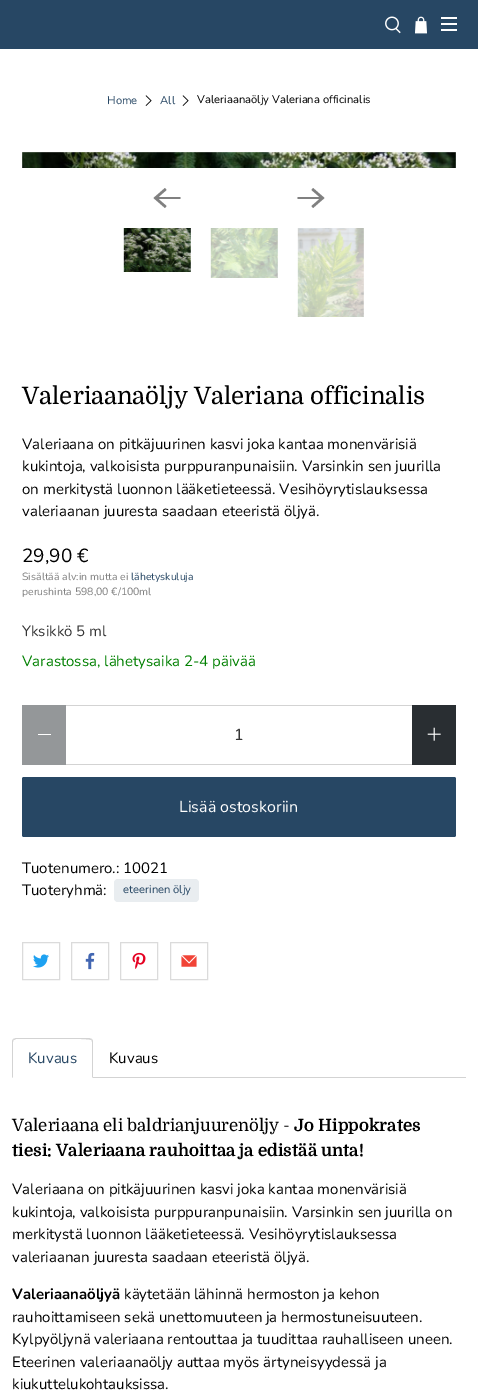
%!PS-Adobe-3.0
%%BoundingBox: 0 0 478 1390
%%LanguageLevel: 3
%%Pages: 1
%%EndComments
%%BeginProlog
/setink { 3 { 255 div 3 1 roll } repeat setrgbcolor } def
/usefont { [ exch dup neg 0 0 3 -1 roll 0 0 ] selectfont } def
/drawtext { setink usefont moveto show } def
/fillbox { setink rectfill } def
/rrect { 5 dict begin { /r /h /w /y /x } { exch def } forall
  x r add y moveto x w add y 2 copy h add r arct x w add y h add x 1 index r arct
  x y h add x y r arct x y 2 copy exch w add exch r arct closepath end } def
/drawimage { 5 dict begin { /h /w /y /x /name } { exch def } forall
  gsave x y translate w h scale
  w h 8 [w 0 0 h 0 0] name (r) file false 3 colorimage grestore end } def
%%EndProlog
%%BeginSetup
<< /PageSize [478 1390] >> setpagedevice
%%EndSetup
%%Page: 1 1
0 1390 translate 1 -1 scale
4 setmiterlimit
0 0 478 1390 255 255 255 fillbox
0 0 478 49 39 71 100 fillbox
(assets/img1.rgb) 385 16 16 18 drawimage
(assets/img2.rgb) 415 16 12 18 drawimage
441 17 16 2 255 255 255 fillbox
441 23 16 2 255 255 255 fillbox
441 29 16 2 255 255 255 fillbox
(Home) 107 104 /Nunito-Regular 11.25 39 71 100 drawtext
(assets/img3.rgb) 145 95 7 11 drawimage
(All) 160 104 /Nunito-Regular 11.25 39 71 100 drawtext
(assets/img3.rgb) 182 95 7 11 drawimage
(Valeriaanaöljy Valeriana officinalis) 197 103 /Nunito-Regular 11.25 0 0 0 drawtext
(assets/img4.rgb) 22 152 434 16 drawimage
128 128 128 setink
180.5 197 moveto 158.5 197 lineto 166.5 190 lineto 165 188 lineto 153.5 198 lineto 165 208 lineto 166.5 206 lineto 158.5 199 lineto 180.5 199 lineto closepath fill
297.5 199 moveto 319.5 199 lineto 311.5 206 lineto 313 208 lineto 324.5 198 lineto 313 188 lineto 311.5 190 lineto 319.5 197 lineto 297.5 197 lineto closepath fill
(assets/img5.rgb) 123 228 68 44 drawimage
(assets/img6.rgb) 210 228 68 50 drawimage
(assets/img7.rgb) 297 228 67 89 drawimage
(Valeriaanaöljy Valeriana officinalis) 22 404 /Domine-Regular 24 0 0 0 drawtext
(Valeriaana on pitkäjuurinen kasvi joka kantaa monenvärisiä) 22 449 /Nunito-Regular 15 0 0 0 drawtext
(kukintoja, valkoisista purppuranpunaisiin. Varsinkin sen juurilla) 22 471 /Nunito-Regular 15 0 0 0 drawtext
(on merkitystä luonnon lääketieteessä. Vesihöyrytislauksessa) 22 494 /Nunito-Regular 15 0 0 0 drawtext
(valeriaanan juuresta saadaan eteeristä öljyä.) 22 516 /Nunito-Regular 15 0 0 0 drawtext
(29,90 €) 22 562 /Nunito-Regular 19 0 0 0 drawtext
(Sisältää alv:in mutta ei) 22 580 /Nunito-Regular 10.5 128 128 128 drawtext
(lähetyskuluja) 131 580 /Nunito-Regular 10.5 39 71 100 drawtext
(perushinta 598,00 €/100ml) 22 595 /Nunito-Regular 10.5 128 128 128 drawtext
(Yksikkö 5 ml) 22 636 /Nunito-Regular 15 54 54 54 drawtext
(Varastossa, lähetysaika 2-4 päivää) 22 666 /Nunito-Regular 15 0 128 0 drawtext
22 705 44 60 148 151 153 fillbox
38 734 13 1 255 255 255 fillbox
66 705 346 1 211 211 211 fillbox
66 764 346 1 211 211 211 fillbox
(1) 234 740 /Nunito-Regular 16 54 54 54 drawtext
412 705 44 60 41 46 50 fillbox
(assets/img8.rgb) 427 727 14 14 drawimage
39 71 100 setink
22 777 434 60 2 rrect fill
(Lisää ostoskoriin) 179 812 /Nunito-Regular 16 255 255 255 drawtext
(Tuotenumero.: 10021) 22 873 /Nunito-Regular 15 0 0 0 drawtext
(Tuoteryhmä:) 22 895 /Nunito-Regular 15 0 0 0 drawtext
233 237 240 setink
114 879 85 23 4 rrect fill
(eteerinen öljy) 123 893 /Nunito-Regular 11.25 39 71 100 drawtext
219 219 219 setink
22.5 942.5 37 37 rectstroke
(assets/img9.rgb) 33 954 16 14 drawimage
71.5 942.5 37 37 rectstroke
(assets/img10.rgb) 85 952 10 18 drawimage
120.5 942.5 37 37 rectstroke
(assets/img11.rgb) 132 952 14 17 drawimage
170.5 942.5 37 37 rectstroke
(assets/img12.rgb) 181 955 16 12 drawimage
93 1077 373 1 211 211 211 fillbox
16 1038 moveto 13 1039 lineto 14 1040 lineto 16 1039 lineto 28 1039 lineto 35 1039 89 1038 91 1040 curveto 92 1039 lineto 89 1038 lineto closepath fill
93 1078 moveto 93 1042 lineto 93 1041 92.5 1040 92 1039 curveto 91 1040 lineto 92 1040 92 1041 92 1042 curveto 92 1077 lineto closepath fill
12 1078 moveto 13 1077 lineto 13 1042 lineto 13 1041 13 1040 14 1040 curveto 13 1039 lineto 12.5 1040 12 1041 12 1042 curveto closepath fill
(Kuvaus) 28 1063 /Nunito-Regular 15 39 71 100 drawtext
(Kuvaus) 109 1063 /Nunito-Regular 15 0 0 0 drawtext
(Valeriaana eli baldrianjuurenöljy -) 12 1131 /Domine-Regular 16.9 0 0 0 drawtext
(Jo Hippokrates) 294 1131 /Domine-Bold 16.9 0 0 0 drawtext
(tiesi: Valeriaana rauhoittaa ja edistää unta!) 12 1156 /Domine-Bold 16.9 0 0 0 drawtext
(Valeriaana on pitkäjuurinen kasvi joka kantaa monenvärisiä) 12 1194 /Nunito-Regular 15 0 0 0 drawtext
(kukintoja, valkoisista purppuranpunaisiin. Varsinkin sen juurilla on) 12 1217 /Nunito-Regular 15 0 0 0 drawtext
(merkitystä luonnon lääketieteessä. Vesihöyrytislauksessa) 12 1239 /Nunito-Regular 15 0 0 0 drawtext
(valeriaanan juuresta saadaan eteeristä öljyä.) 12 1262 /Nunito-Regular 15 0 0 0 drawtext
(Valeriaanaöljyä) 12 1299 /Nunito-Bold 15 0 0 0 drawtext
(käytetään lähinnä hermoston ja kehon) 124 1299 /Nunito-Regular 15 0 0 0 drawtext
(rauhoittamiseen sekä unettomuuteen ja hermostuneisuuteen.) 12 1322 /Nunito-Regular 15 0 0 0 drawtext
(Kylpyöljynä valeriaana rentouttaa ja tuudittaa rauhalliseen uneen.) 12 1344 /Nunito-Regular 15 0 0 0 drawtext
(Eteerinen valeriaanaöljy auttaa myös ärtyneisyydessä ja) 12 1367 /Nunito-Regular 15 0 0 0 drawtext
(kiukuttelukohtauksissa.) 12 1389 /Nunito-Regular 15 0 0 0 drawtext
showpage
%%EOF
